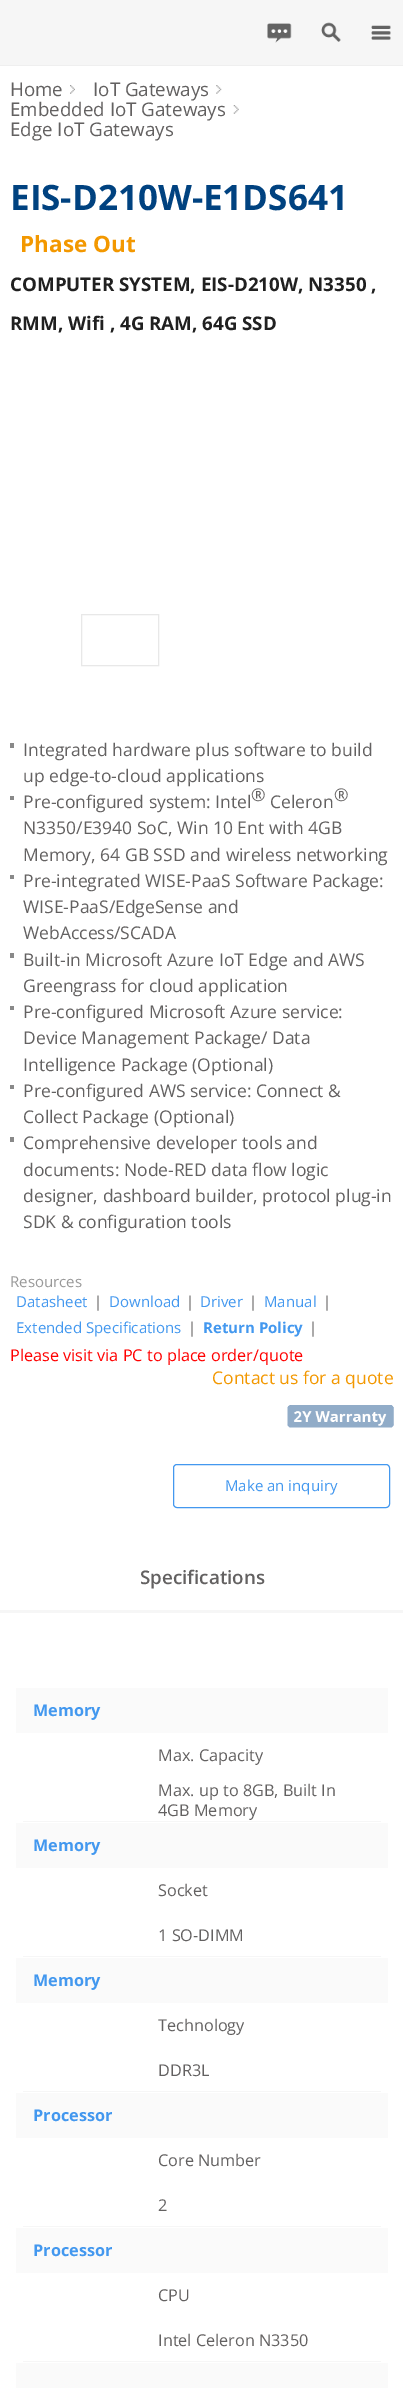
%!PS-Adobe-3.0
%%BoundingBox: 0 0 403 2388
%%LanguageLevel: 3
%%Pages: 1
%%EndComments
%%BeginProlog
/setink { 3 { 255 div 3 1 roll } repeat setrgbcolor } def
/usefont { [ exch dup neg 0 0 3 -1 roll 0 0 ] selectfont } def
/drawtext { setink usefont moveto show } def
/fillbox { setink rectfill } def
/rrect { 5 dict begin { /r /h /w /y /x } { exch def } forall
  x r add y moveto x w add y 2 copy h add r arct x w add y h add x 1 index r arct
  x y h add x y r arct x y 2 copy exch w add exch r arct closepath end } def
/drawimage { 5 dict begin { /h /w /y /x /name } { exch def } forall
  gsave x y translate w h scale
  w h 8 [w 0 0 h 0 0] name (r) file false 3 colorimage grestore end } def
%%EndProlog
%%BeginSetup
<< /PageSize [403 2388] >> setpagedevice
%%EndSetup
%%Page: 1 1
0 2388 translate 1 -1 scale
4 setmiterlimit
0 0 403 2388 255 255 255 fillbox
0 0 403 65 246 246 246 fillbox
0 65 403 1 239 239 239 fillbox
(assets/img1.rgb) 267 23 25 20 drawimage
(assets/img2.rgb) 321 22 20 20 drawimage
(assets/img3.rgb) 371 25 20 15 drawimage
(assets/img4.rgb) 70 85 5 9 drawimage
(Home) 10 96 /OpenSans-Regular 18.75 99 97 97 drawtext
(assets/img5.rgb) 216 85 6 9 drawimage
(IoT Gateways) 93 96 /OpenSans-Regular 18.75 99 97 97 drawtext
(assets/img6.rgb) 233 105 6 9 drawimage
(Embedded IoT Gateways) 10 116 /OpenSans-Regular 18.75 99 97 97 drawtext
(Edge IoT Gateways) 10 136 /OpenSans-Regular 18.75 99 97 97 drawtext
(EIS-D210W-E1DS641) 10 210 /OpenSans-Bold 35 0 66 128 drawtext
(Phase Out) 20 252 /OpenSans-Bold 22.5 243 152 0 drawtext
(COMPUTER SYSTEM, EIS-D210W, N3350 ,) 10 291 /OpenSans-Bold 18.75 32 32 32 drawtext
(RMM, Wifi , 4G RAM, 64G SSD) 10 330 /OpenSans-Bold 18.75 32 32 32 drawtext
232 232 232 setink
81.5 614.5 77 51 rectstroke
10 743 4 5 137 137 137 fillbox
(Integrated hardware plus software to build) 23 756 /OpenSans-Regular 17.5 99 97 97 drawtext
(up edge-to-cloud applications) 23 782 /OpenSans-Regular 17.5 99 97 97 drawtext
10 796 4 4 137 137 137 fillbox
(Pre-configured system: Intel) 23 808 /OpenSans-Regular 17.5 99 97 97 drawtext
(®) 251 801 /OpenSans-Regular 17.5 99 97 97 drawtext
(Celeron) 270 808 /OpenSans-Regular 17.5 99 97 97 drawtext
(®) 334 801 /OpenSans-Regular 17.5 99 97 97 drawtext
(N3350/E3940 SoC, Win 10 Ent with 4GB) 23 834 /OpenSans-Regular 17.5 99 97 97 drawtext
(Memory, 64 GB SSD and wireless networking) 23 861 /OpenSans-Regular 17.5 99 97 97 drawtext
10 875 4 4 137 137 137 fillbox
(Pre-integrated WISE-PaaS Software Package:) 23 887 /OpenSans-Regular 17.5 99 97 97 drawtext
(WISE-PaaS/EdgeSense and) 23 913 /OpenSans-Regular 17.5 99 97 97 drawtext
(WebAccess/SCADA) 23 939 /OpenSans-Regular 17.5 99 97 97 drawtext
10 953 4 5 137 137 137 fillbox
(Built-in Microsoft Azure IoT Edge and AWS) 23 966 /OpenSans-Regular 17.5 99 97 97 drawtext
(Greengrass for cloud application) 23 992 /OpenSans-Regular 17.5 99 97 97 drawtext
10 1006 4 4 137 137 137 fillbox
(Pre-configured Microsoft Azure service:) 23 1018 /OpenSans-Regular 17.5 99 97 97 drawtext
(Device Management Package/ Data) 23 1044 /OpenSans-Regular 17.5 99 97 97 drawtext
(Intelligence Package \(Optional\)) 23 1071 /OpenSans-Regular 17.5 99 97 97 drawtext
10 1085 4 4 137 137 137 fillbox
(Pre-configured AWS service: Connect &) 23 1097 /OpenSans-Regular 17.5 99 97 97 drawtext
(Collect Package \(Optional\)) 23 1123 /OpenSans-Regular 17.5 99 97 97 drawtext
10 1137 4 5 137 137 137 fillbox
(Comprehensive developer tools and) 23 1149 /OpenSans-Regular 17.5 99 97 97 drawtext
(documents: Node-RED data flow logic) 23 1176 /OpenSans-Regular 17.5 99 97 97 drawtext
(designer, dashboard builder, protocol plug-in) 23 1202 /OpenSans-Regular 17.5 99 97 97 drawtext
(SDK & configuration tools) 23 1228 /OpenSans-Regular 17.5 99 97 97 drawtext
(Resources) 10 1287 /OpenSans-Regular 15 153 153 153 drawtext
(Datasheet) 16 1307 /OpenSans-Regular 15 67 152 239 drawtext
(|) 94 1307 /OpenSans-Regular 15 99 97 97 drawtext
(Download) 109 1307 /OpenSans-Regular 15 67 152 239 drawtext
(|) 186 1307 /OpenSans-Regular 15 99 97 97 drawtext
(Driver) 200 1307 /OpenSans-Regular 15 67 152 239 drawtext
(|) 249 1307 /OpenSans-Regular 15 99 97 97 drawtext
(Manual) 264 1307 /OpenSans-Regular 15 67 152 239 drawtext
(|) 323 1307 /OpenSans-Regular 15 99 97 97 drawtext
(Extended Specifications) 16 1333 /OpenSans-Regular 15 67 152 239 drawtext
(|) 188 1333 /OpenSans-Regular 15 99 97 97 drawtext
(Return Policy) 203 1333 /OpenSans-Bold 15 67 152 239 drawtext
(|) 309 1333 /OpenSans-Regular 15 99 97 97 drawtext
(Please visit via PC to place order/quote) 10 1361 /OpenSans-Regular 16.25 255 0 0 drawtext
(Contact us for a quote) 212 1384 /OpenSans-Regular 17.5 243 152 0 drawtext
(assets/img7.rgb) 287 1405 107 23 drawimage
67 152 239 setink
173.5 1464.5 216 43 3.5 rrect stroke
(Make an inquiry) 225 1491 /OpenSans-Regular 15 67 152 239 drawtext
0 1610 403 3 246 246 246 fillbox
(Specifications) 140 1584 /OpenSans-SemiBold 18.75 99 97 97 drawtext
16 1688 372 45 250 250 250 fillbox
(Memory) 33 1716 /OpenSans-Bold 16.25 67 152 239 drawtext
(Max. Capacity) 158 1761 /OpenSans-Regular 16.25 99 97 97 drawtext
(Max. up to 8GB, Built In) 158 1796 /OpenSans-Regular 16.25 99 97 97 drawtext
(4GB Memory) 158 1816 /OpenSans-Regular 16.25 99 97 97 drawtext
23 1821 358 1 246 246 246 fillbox
16 1823 372 45 250 250 250 fillbox
(Memory) 33 1851 /OpenSans-Bold 16.25 67 152 239 drawtext
(Socket) 158 1896 /OpenSans-Regular 16.25 99 97 97 drawtext
(1 SO-DIMM) 158 1941 /OpenSans-Regular 16.25 99 97 97 drawtext
23 1956 358 1 246 246 246 fillbox
16 1958 372 45 250 250 250 fillbox
(Memory) 33 1986 /OpenSans-Bold 16.25 67 152 239 drawtext
(Technology) 158 2031 /OpenSans-Regular 16.25 99 97 97 drawtext
(DDR3L) 158 2076 /OpenSans-Regular 16.25 99 97 97 drawtext
23 2091 358 1 246 246 246 fillbox
16 2093 372 45 250 250 250 fillbox
(Processor) 33 2121 /OpenSans-Bold 16.25 67 152 239 drawtext
(Core Number) 158 2166 /OpenSans-Regular 16.25 99 97 97 drawtext
(2) 158 2211 /OpenSans-Regular 16.25 99 97 97 drawtext
23 2226 358 1 246 246 246 fillbox
16 2228 372 45 250 250 250 fillbox
(Processor) 33 2256 /OpenSans-Bold 16.25 67 152 239 drawtext
(CPU) 158 2301 /OpenSans-Regular 16.25 99 97 97 drawtext
(Intel Celeron N3350) 158 2346 /OpenSans-Regular 16.25 99 97 97 drawtext
23 2361 358 1 246 246 246 fillbox
16 2363 372 25 250 250 250 fillbox
showpage
%%EOF
